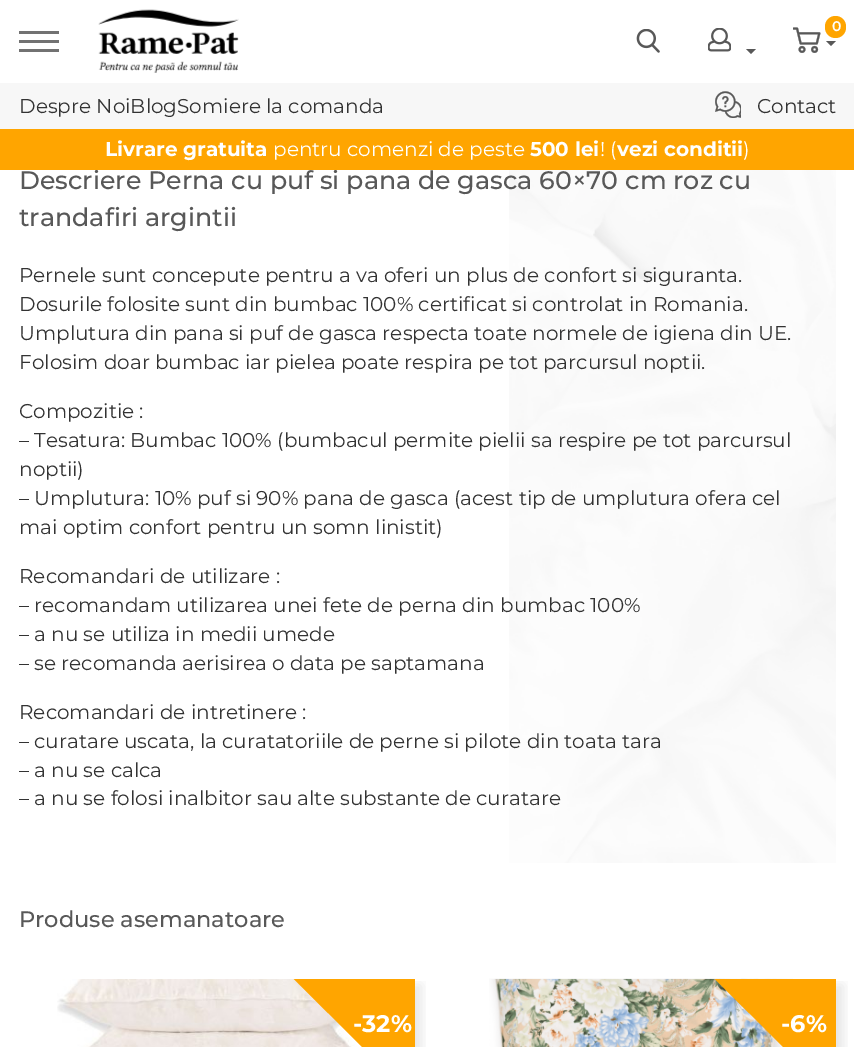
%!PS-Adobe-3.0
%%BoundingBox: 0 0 854 1047
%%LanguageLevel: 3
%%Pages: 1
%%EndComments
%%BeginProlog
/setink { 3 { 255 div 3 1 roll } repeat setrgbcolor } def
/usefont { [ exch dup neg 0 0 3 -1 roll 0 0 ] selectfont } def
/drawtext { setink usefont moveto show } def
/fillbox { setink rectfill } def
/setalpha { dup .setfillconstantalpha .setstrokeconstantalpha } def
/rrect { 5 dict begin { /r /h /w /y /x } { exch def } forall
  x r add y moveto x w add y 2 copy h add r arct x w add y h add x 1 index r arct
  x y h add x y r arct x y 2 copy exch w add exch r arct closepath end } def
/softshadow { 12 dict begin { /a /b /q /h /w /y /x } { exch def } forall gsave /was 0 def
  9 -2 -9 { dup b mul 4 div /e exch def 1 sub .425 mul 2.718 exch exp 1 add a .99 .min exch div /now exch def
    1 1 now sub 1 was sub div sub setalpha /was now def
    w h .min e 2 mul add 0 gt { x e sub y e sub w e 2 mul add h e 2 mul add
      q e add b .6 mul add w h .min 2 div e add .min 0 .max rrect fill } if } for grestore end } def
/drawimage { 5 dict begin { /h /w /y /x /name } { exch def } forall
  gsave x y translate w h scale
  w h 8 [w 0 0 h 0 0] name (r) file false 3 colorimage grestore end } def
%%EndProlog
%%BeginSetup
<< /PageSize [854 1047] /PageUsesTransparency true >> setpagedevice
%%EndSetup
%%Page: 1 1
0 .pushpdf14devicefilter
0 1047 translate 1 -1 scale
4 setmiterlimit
0 0 854 1047 255 255 255 fillbox
19 31 40 3 114 114 114 fillbox
19 40 40 3 114 114 114 fillbox
19 49 40 3 114 114 114 fillbox
(assets/img1.rgb) 98 9 141 64 drawimage
(assets/img2.rgb) 793 27 28 26 drawimage
88 88 88 setink
831 46 moveto 826 41 lineto 836 41 lineto closepath fill
255 165 0 setink
825 16 21 22 10.5 rrect fill
(0) 832 31 /Montserrat-SemiBold 14 255 255 255 drawtext
(assets/img3.rgb) 636 29 24 24 drawimage
(assets/img4.rgb) 708 28 23 24 drawimage
88 88 88 setink
751 54 moveto 746 49 lineto 756 49 lineto closepath fill
0 83 854 46 247 247 247 fillbox
(Despre NoiBlogSomiere la comanda) 19 113 /Montserrat-Regular 20 51 51 51 drawtext
(assets/img5.rgb) 715 91 26 27 drawimage
(Contact) 757 113 /Montserrat-Regular 20 51 51 51 drawtext
(assets/img6.rgb) 509 170 327 693 drawimage
(Descriere Perna cu puf si pana de gasca 60×70 cm roz cu) 19 189 /Montserrat-Medium 25.3 88 88 88 drawtext
0 129 854 41 255 165 0 fillbox
(Livrare gratuita) 105 156 /Montserrat-Bold 20 255 255 255 drawtext
(pentru comenzi de peste) 273 156 /Montserrat-Regular 20 255 255 255 drawtext
(500 lei) 530 156 /Montserrat-Bold 20 255 255 255 drawtext
(! \() 600 156 /Montserrat-Regular 20 255 255 255 drawtext
(vezi conditii) 617 156 /Montserrat-Bold 20 255 255 255 drawtext
(\)) 743 156 /Montserrat-Regular 20 255 255 255 drawtext
(trandafiri argintii) 19 226 /Montserrat-Medium 25.3 88 88 88 drawtext
(Pernele sunt concepute pentru a va oferi un plus de confort si siguranta.) 19 282 /Montserrat-Regular 20 51 51 51 drawtext
(Dosurile folosite sunt din bumbac 100% certificat si controlat in Romania.) 19 311 /Montserrat-Regular 20 51 51 51 drawtext
(Umplutura din pana si puf de gasca respecta toate normele de igiena din UE.) 19 340 /Montserrat-Regular 20 51 51 51 drawtext
(Folosim doar bumbac iar pielea poate respira pe tot parcursul noptii.) 19 369 /Montserrat-Regular 20 51 51 51 drawtext
(Compozitie :) 19 418 /Montserrat-Regular 20 51 51 51 drawtext
(– Tesatura: Bumbac 100% \(bumbacul permite pielii sa respire pe tot parcursul) 19 447 /Montserrat-Regular 20 51 51 51 drawtext
(noptii\)) 19 476 /Montserrat-Regular 20 51 51 51 drawtext
(– Umplutura: 10% puf si 90% pana de gasca \(acest tip de umplutura ofera cel) 19 505 /Montserrat-Regular 20 51 51 51 drawtext
(mai optim confort pentru un somn linistit\)) 19 534 /Montserrat-Regular 20 51 51 51 drawtext
(Recomandari de utilizare :) 19 583 /Montserrat-Regular 20 51 51 51 drawtext
(– recomandam utilizarea unei fete de perna din bumbac 100%) 19 612 /Montserrat-Regular 20 51 51 51 drawtext
(– a nu se utiliza in medii umede) 19 641 /Montserrat-Regular 20 51 51 51 drawtext
(– se recomanda aerisirea o data pe saptamana) 19 670 /Montserrat-Regular 20 51 51 51 drawtext
(Recomandari de intretinere :) 19 719 /Montserrat-Regular 20 51 51 51 drawtext
(– curatare uscata, la curatatoriile de perne si pilote din toata tara) 19 748 /Montserrat-Regular 20 51 51 51 drawtext
(– a nu se calca) 19 777 /Montserrat-Regular 20 51 51 51 drawtext
(– a nu se folosi inalbitor sau alte substante de curatare) 19 805 /Montserrat-Regular 20 51 51 51 drawtext
(Produse asemanatoare) 19 927 /Montserrat-Medium 22.5 88 88 88 drawtext
gsave
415 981 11 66 rectclip
0 0 0 setink
25 985 396 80 0 6 0.1 softshadow
grestore
(assets/img7.rgb) 57 979 305 68 drawimage
gsave
19 979 396 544 rectclip
255 165 0 setink
330 874 moveto 507 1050 lineto 436 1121 lineto 259 944 lineto closepath fill
grestore
(-32%) 353 1032 /Montserrat-Bold 24 255 255 255 drawtext
gsave
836 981 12 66 rectclip
0 0 0 setink
446 985 397 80 0 6 0.1 softshadow
grestore
(assets/img8.rgb) 489 978 304 69 drawimage
gsave
440 979 396 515 rectclip
255 165 0 setink
751 874 moveto 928 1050 lineto 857 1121 lineto 680 944 lineto closepath fill
grestore
(-6%) 781 1032 /Montserrat-Bold 24 255 255 255 drawtext
.poppdf14devicefilter showpage
%%EOF
